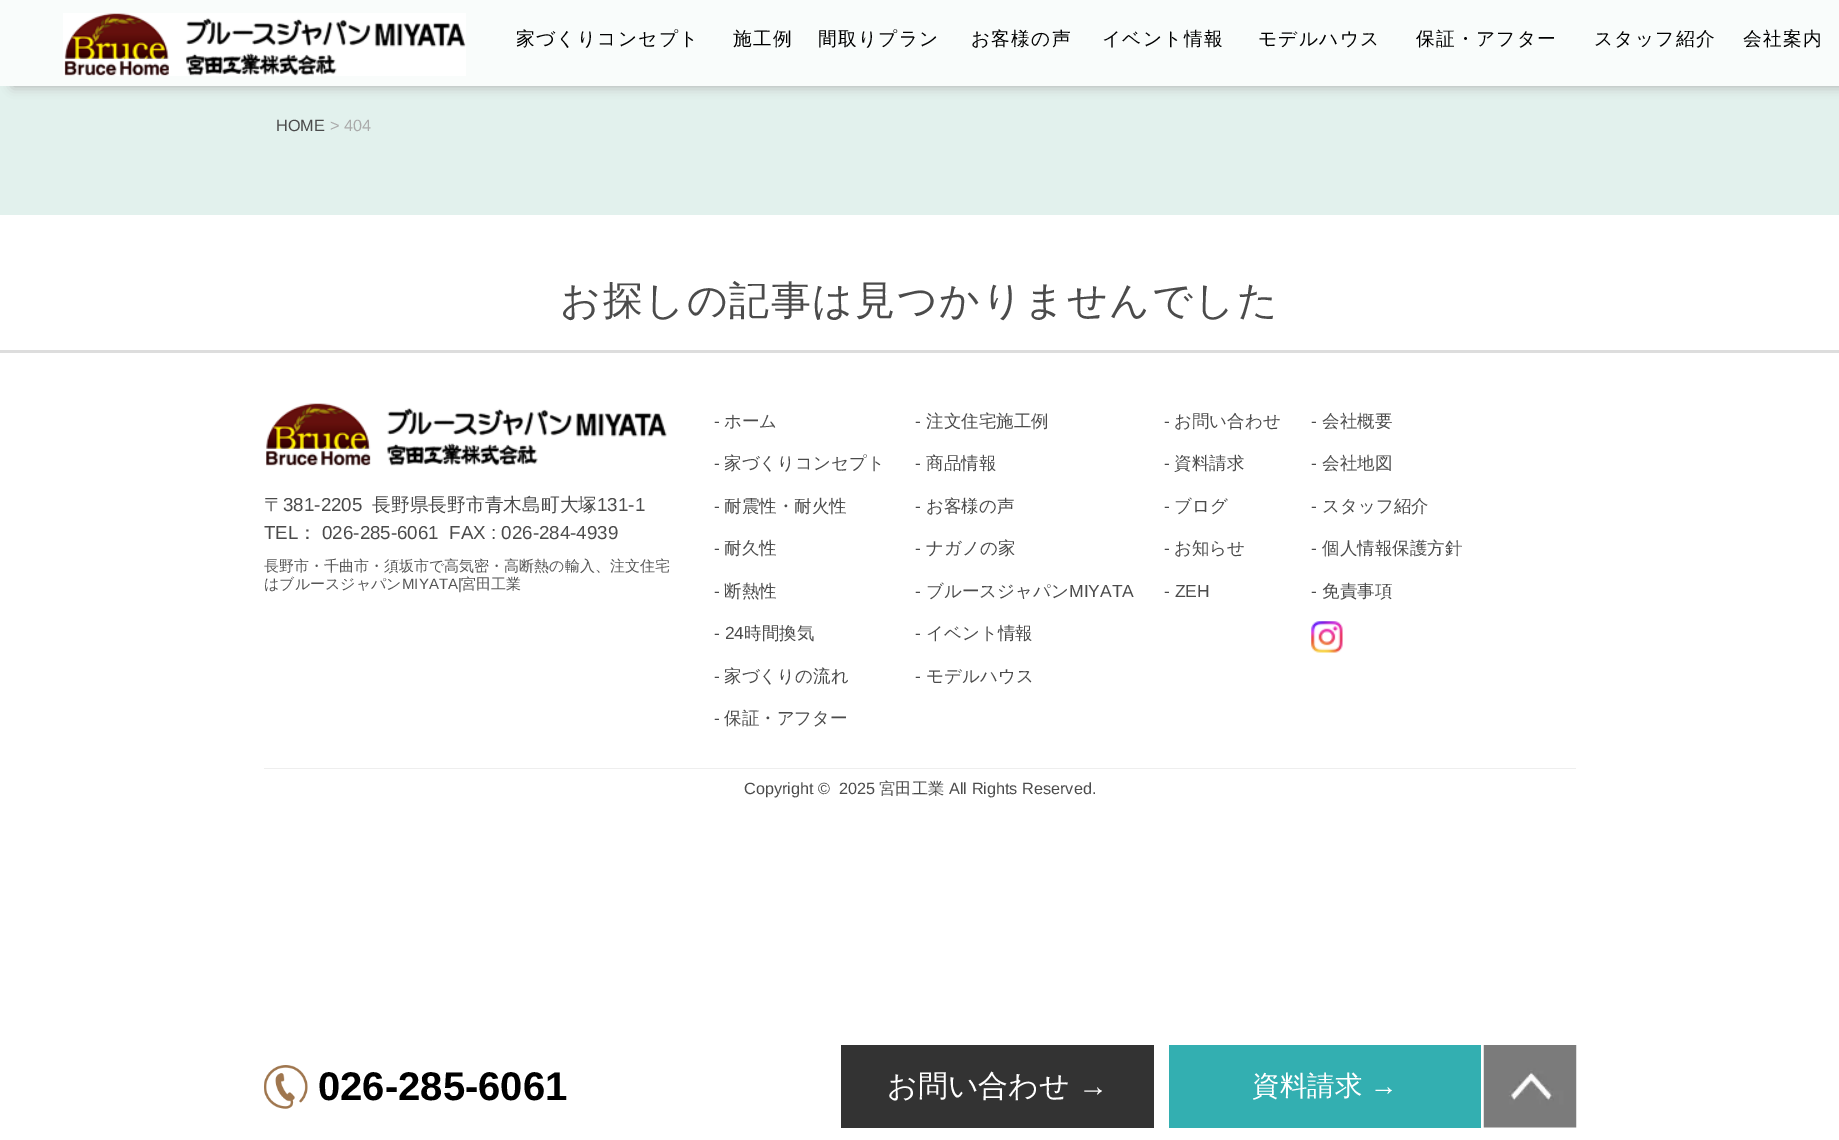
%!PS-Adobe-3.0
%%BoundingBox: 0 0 1839 1140
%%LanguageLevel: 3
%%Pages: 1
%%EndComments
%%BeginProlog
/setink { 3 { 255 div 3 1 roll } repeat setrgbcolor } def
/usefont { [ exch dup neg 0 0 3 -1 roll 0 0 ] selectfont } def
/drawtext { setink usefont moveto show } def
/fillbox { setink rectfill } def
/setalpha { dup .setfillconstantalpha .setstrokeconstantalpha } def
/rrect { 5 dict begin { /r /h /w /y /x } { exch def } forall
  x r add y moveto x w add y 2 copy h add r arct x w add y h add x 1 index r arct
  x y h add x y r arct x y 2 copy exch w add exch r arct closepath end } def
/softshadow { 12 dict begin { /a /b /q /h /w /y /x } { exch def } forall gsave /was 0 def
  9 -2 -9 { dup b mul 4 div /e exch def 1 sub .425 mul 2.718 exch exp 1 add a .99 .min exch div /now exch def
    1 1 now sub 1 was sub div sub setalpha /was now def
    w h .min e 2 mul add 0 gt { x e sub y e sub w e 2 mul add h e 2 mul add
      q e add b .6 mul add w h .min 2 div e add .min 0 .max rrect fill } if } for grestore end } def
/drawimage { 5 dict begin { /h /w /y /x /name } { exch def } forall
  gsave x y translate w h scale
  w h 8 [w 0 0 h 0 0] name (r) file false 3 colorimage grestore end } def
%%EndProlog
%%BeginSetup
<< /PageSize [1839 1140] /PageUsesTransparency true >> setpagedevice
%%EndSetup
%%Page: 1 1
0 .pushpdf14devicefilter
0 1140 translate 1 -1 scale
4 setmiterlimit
0 0 1839 1140 255 255 255 fillbox
0 86 1839 129 226 241 237 fillbox
170 170 170 setink
13 0 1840 86 0 6 1 softshadow
0 0 1839 86 249 252 251 fillbox
(assets/img1.rgb) 63 13 403 63 drawimage
/WenQuanYiZenHei-Medium 18.75 usefont
0 0 0 setink
516 45 moveto 1.25 0 (家づくりコンセプト) ashow
733 45 moveto 1.25 0 (施工例) ashow
818 45 moveto 1.25 0 (間取りプラン) ashow
971 45 moveto 1.25 0 (お客様の声) ashow
1102 45 moveto 1.25 0 (イベント情報) ashow
1258 45 moveto 1.25 0 (モデルハウス) ashow
1416 45 moveto 1.25 0 (保証・アフター) ashow
1594 45 moveto 1.25 0 (スタッフ紹介) ashow
1743 45 moveto 1.25 0 (会社案内) ashow
(HOME) 276 131 /LiberationSans-Regular 16.25 75 75 75 drawtext
(> 404) 330 131 /LiberationSans-Regular 16.25 170 170 170 drawtext
/WenQuanYiZenHei-Medium 40 usefont
75 75 75 setink
560 314 moveto 1.6 0 (お探しの記事は見つかりませんでした) ashow
0 350 1839 3 221 221 221 fillbox
(assets/img2.rgb) 266 403 401 63 drawimage
(〒) 264 511 /WenQuanYiZenHei-Medium 18.75 75 75 75 drawtext
(381-2205) 283 511 /LiberationSans-Regular 18.75 75 75 75 drawtext
(長野県長野市青木島町大塚) 372 511 /WenQuanYiZenHei-Medium 18.75 75 75 75 drawtext
(131-1) 597 511 /LiberationSans-Regular 18.75 75 75 75 drawtext
(TEL) 264 539 /LiberationSans-Regular 18.75 75 75 75 drawtext
(：) 298 539 /WenQuanYiZenHei-Medium 18.75 75 75 75 drawtext
(026-285-6061  FAX : 026-284-4939) 322 539 /LiberationSans-Regular 18.75 75 75 75 drawtext
(長野市・千曲市・須坂市で高気密・高断熱の輸入、注文住宅) 264 571 /WenQuanYiZenHei-Medium 15 85 85 85 drawtext
(はブルースジャパン) 264 589 /WenQuanYiZenHei-Medium 15 85 85 85 drawtext
(MIYATA|) 402 589 /LiberationSans-Regular 15 85 85 85 drawtext
(宮田工業) 461 589 /WenQuanYiZenHei-Medium 15 85 85 85 drawtext
(-) 714 427 /LiberationSans-Regular 17.5 75 75 75 drawtext
(ホーム) 724 427 /WenQuanYiZenHei-Medium 17.5 75 75 75 drawtext
(-) 714 469 /LiberationSans-Regular 17.5 75 75 75 drawtext
(家づくりコンセプト) 724 469 /WenQuanYiZenHei-Medium 17.5 75 75 75 drawtext
(-) 714 512 /LiberationSans-Regular 17.5 75 75 75 drawtext
(耐震性・耐火性) 724 512 /WenQuanYiZenHei-Medium 17.5 75 75 75 drawtext
(-) 714 554 /LiberationSans-Regular 17.5 75 75 75 drawtext
(耐久性) 724 554 /WenQuanYiZenHei-Medium 17.5 75 75 75 drawtext
(-) 714 597 /LiberationSans-Regular 17.5 75 75 75 drawtext
(断熱性) 724 597 /WenQuanYiZenHei-Medium 17.5 75 75 75 drawtext
(- 24) 714 639 /LiberationSans-Regular 17.5 75 75 75 drawtext
(時間換気) 744 639 /WenQuanYiZenHei-Medium 17.5 75 75 75 drawtext
(-) 714 682 /LiberationSans-Regular 17.5 75 75 75 drawtext
(家づくりの流れ) 724 682 /WenQuanYiZenHei-Medium 17.5 75 75 75 drawtext
(-) 714 724 /LiberationSans-Regular 17.5 75 75 75 drawtext
(保証・アフター) 724 724 /WenQuanYiZenHei-Medium 17.5 75 75 75 drawtext
(-) 915 427 /LiberationSans-Regular 17.5 75 75 75 drawtext
(注文住宅施工例) 926 427 /WenQuanYiZenHei-Medium 17.5 75 75 75 drawtext
(-) 915 469 /LiberationSans-Regular 17.5 75 75 75 drawtext
(商品情報) 926 469 /WenQuanYiZenHei-Medium 17.5 75 75 75 drawtext
(-) 915 512 /LiberationSans-Regular 17.5 75 75 75 drawtext
(お客様の声) 926 512 /WenQuanYiZenHei-Medium 17.5 75 75 75 drawtext
(-) 915 554 /LiberationSans-Regular 17.5 75 75 75 drawtext
(ナガノの家) 926 554 /WenQuanYiZenHei-Medium 17.5 75 75 75 drawtext
(-) 915 597 /LiberationSans-Regular 17.5 75 75 75 drawtext
(ブルースジャパン) 926 597 /WenQuanYiZenHei-Medium 17.5 75 75 75 drawtext
(MIYATA) 1069 597 /LiberationSans-Regular 17.5 75 75 75 drawtext
(-) 915 639 /LiberationSans-Regular 17.5 75 75 75 drawtext
(イベント情報) 926 639 /WenQuanYiZenHei-Medium 17.5 75 75 75 drawtext
(-) 915 682 /LiberationSans-Regular 17.5 75 75 75 drawtext
(モデルハウス) 926 682 /WenQuanYiZenHei-Medium 17.5 75 75 75 drawtext
(-) 1164 427 /LiberationSans-Regular 17.5 75 75 75 drawtext
(お問い合わせ) 1174 427 /WenQuanYiZenHei-Medium 17.5 75 75 75 drawtext
(-) 1164 469 /LiberationSans-Regular 17.5 75 75 75 drawtext
(資料請求) 1174 469 /WenQuanYiZenHei-Medium 17.5 75 75 75 drawtext
(-) 1164 512 /LiberationSans-Regular 17.5 75 75 75 drawtext
(ブログ) 1174 512 /WenQuanYiZenHei-Medium 17.5 75 75 75 drawtext
(-) 1164 554 /LiberationSans-Regular 17.5 75 75 75 drawtext
(お知らせ) 1174 554 /WenQuanYiZenHei-Medium 17.5 75 75 75 drawtext
(- ZEH) 1164 597 /LiberationSans-Regular 17.5 75 75 75 drawtext
(-) 1311 427 /LiberationSans-Regular 17.5 75 75 75 drawtext
(会社概要) 1322 427 /WenQuanYiZenHei-Medium 17.5 75 75 75 drawtext
(-) 1311 469 /LiberationSans-Regular 17.5 75 75 75 drawtext
(会社地図) 1322 469 /WenQuanYiZenHei-Medium 17.5 75 75 75 drawtext
(-) 1311 512 /LiberationSans-Regular 17.5 75 75 75 drawtext
(スタッフ紹介) 1322 512 /WenQuanYiZenHei-Medium 17.5 75 75 75 drawtext
(-) 1311 554 /LiberationSans-Regular 17.5 75 75 75 drawtext
(個人情報保護方針) 1322 554 /WenQuanYiZenHei-Medium 17.5 75 75 75 drawtext
(-) 1311 597 /LiberationSans-Regular 17.5 75 75 75 drawtext
(免責事項) 1322 597 /WenQuanYiZenHei-Medium 17.5 75 75 75 drawtext
(assets/img3.rgb) 1311 621 32 32 drawimage
264 768 1312 1 238 238 238 fillbox
(Copyright ©  2025) 744 794 /LiberationSans-Regular 16.25 75 75 75 drawtext
(宮田工業) 879 794 /WenQuanYiZenHei-Medium 16.25 75 75 75 drawtext
(All Rights Reserved.) 949 794 /LiberationSans-Regular 16.25 75 75 75 drawtext
(assets/img4.rgb) 264 1065 44 44 drawimage
(026-285-6061) 318 1100 /LiberationSans-Bold 40 0 0 0 drawtext
841 1045 313 83 51 51 51 fillbox
(お問い合わせ) 887 1096 /WenQuanYiZenHei-Medium 30 255 255 255 drawtext
(→) 1078 1096 /LiberationSans-Regular 30 255 255 255 drawtext
1169 1045 312 83 51 175 177 fillbox
(資料請求) 1252 1095 /WenQuanYiZenHei-Medium 27.5 255 255 255 drawtext
(→) 1370 1095 /LiberationSans-Regular 27.5 255 255 255 drawtext
(assets/img5.rgb) 1483 1045 94 83 drawimage
.poppdf14devicefilter showpage
%%EOF
